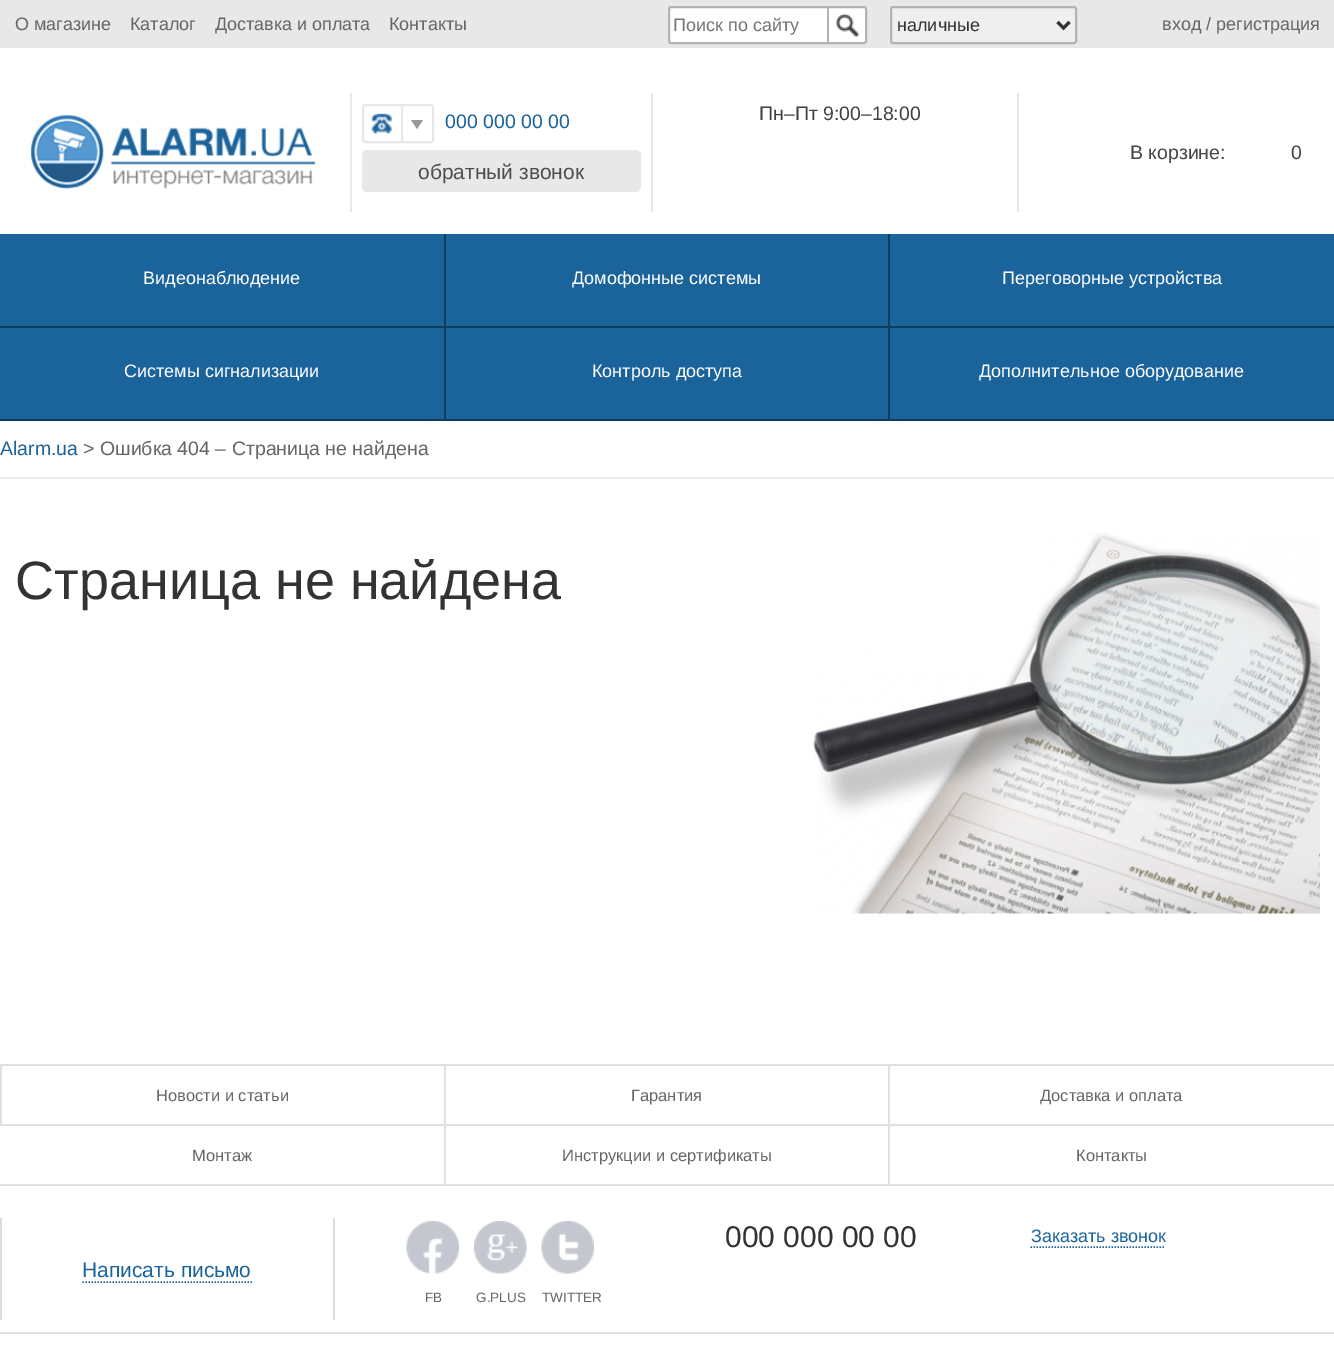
%!PS-Adobe-3.0
%%BoundingBox: 0 0 1334 1345
%%LanguageLevel: 3
%%Pages: 1
%%EndComments
%%BeginProlog
/setink { 3 { 255 div 3 1 roll } repeat setrgbcolor } def
/usefont { [ exch dup neg 0 0 3 -1 roll 0 0 ] selectfont } def
/drawtext { setink usefont moveto show } def
/fillbox { setink rectfill } def
/rrect { 5 dict begin { /r /h /w /y /x } { exch def } forall
  x r add y moveto x w add y 2 copy h add r arct x w add y h add x 1 index r arct
  x y h add x y r arct x y 2 copy exch w add exch r arct closepath end } def
/drawimage { 5 dict begin { /h /w /y /x /name } { exch def } forall
  gsave x y translate w h scale
  w h 8 [w 0 0 h 0 0] name (r) file false 3 colorimage grestore end } def
%%EndProlog
%%BeginSetup
<< /PageSize [1334 1345] >> setpagedevice
%%EndSetup
%%Page: 1 1
0 1345 translate 1 -1 scale
4 setmiterlimit
0 0 1334 1345 255 255 255 fillbox
0 0 1334 48 232 232 232 fillbox
(О магазине) 15 30 /LiberationSans-Regular 18 102 102 102 drawtext
(Каталог) 130 30 /LiberationSans-Regular 18 102 102 102 drawtext
(Доставка и оплата) 215 30 /LiberationSans-Regular 18 102 102 102 drawtext
(Контакты) 389 30 /LiberationSans-Regular 18 102 102 102 drawtext
255 255 255 setink
669 7 197 36 2 rrect gsave fill grestore
179 179 179 setink
2 setlinewidth
stroke
(Поиск по сайту) 673 31 /LiberationSans-Regular 18 117 117 117 drawtext
(assets/img1.rgb) 835 13 25 25 drawimage
827 8 2 36 179 179 179 fillbox
239 239 239 setink
891 7 185 36 2 rrect gsave fill grestore
179 179 179 setink
stroke
51 51 51 setink
3 setlinewidth
1057.5 22 moveto 1063.5 28 lineto 1069.5 22 lineto stroke
(наличные) 897 31 /LiberationSans-Regular 18 51 51 51 drawtext
(вход / регистрация) 1162 30 /LiberationSans-Regular 18 102 102 102 drawtext
(assets/img2.rgb) 31 115 285 75 drawimage
350 93 2 119 232 232 232 fillbox
2 setlinewidth
363 105 70 37 2 rrect stroke
(assets/img3.rgb) 371 113 21 21 drawimage
401 105 2 36 232 232 232 fillbox
153 153 153 setink
411 120 moveto 423 120 lineto 417 129 lineto closepath fill
(000 000 00 00) 445 128 /LiberationSans-Regular 19.5 27 99 155 drawtext
651 93 2 119 232 232 232 fillbox
362 150 279 42 5 rrect fill
(обратный звонок) 418 179 /LiberationSans-Regular 21 78 78 78 drawtext
(Пн–Пт 9:00–18:00) 759 120 /LiberationSans-Regular 19.5 63 66 68 drawtext
1017 93 2 119 232 232 232 fillbox
(В корзине:) 1130 159 /LiberationSans-Regular 19.5 69 69 69 drawtext
(0) 1291 159 /LiberationSans-Regular 19.5 69 69 69 drawtext
0 234 1334 185 27 99 155 fillbox
444 234 2 93 16 61 95 fillbox
0 326 446 2 16 61 95 fillbox
(Видеонаблюдение) 143 284 /LiberationSans-Regular 18 255 255 255 drawtext
888 234 2 93 16 61 95 fillbox
446 326 888 2 16 61 95 fillbox
(Домофонные системы) 572 284 /LiberationSans-Regular 18 255 255 255 drawtext
(Переговорные устройства) 1002 284 /LiberationSans-Regular 18 255 255 255 drawtext
444 327 2 93 16 61 95 fillbox
0 419 446 2 16 61 95 fillbox
(Системы сигнализации) 124 377 /LiberationSans-Regular 18 255 255 255 drawtext
888 327 2 93 16 61 95 fillbox
446 419 888 2 16 61 95 fillbox
(Контроль доступа) 592 377 /LiberationSans-Regular 18 255 255 255 drawtext
(Дополнительное оборудование) 979 377 /LiberationSans-Regular 18 255 255 255 drawtext
0 477 1334 2 237 237 237 fillbox
(Alarm.ua) 0 455 /LiberationSans-Regular 19.5 27 99 155 drawtext
(> Ошибка 404 – Страница не найдена) 83 455 /LiberationSans-Regular 19.5 102 102 102 drawtext
(Страница не найдена) 15 599 /LiberationSans-Regular 54 51 51 51 drawtext
(assets/img4.rgb) 813 533 507 381 drawimage
0 1064 1334 2 224 224 224 fillbox
444 1065 2 60 224 224 224 fillbox
0 1124 446 2 224 224 224 fillbox
0 1065 2 60 224 224 224 fillbox
(Новости и статьи) 156 1101 /LiberationSans-Regular 16.5 102 102 102 drawtext
888 1065 2 60 224 224 224 fillbox
446 1124 888 2 224 224 224 fillbox
(Гарантия) 631 1101 /LiberationSans-Regular 16.5 102 102 102 drawtext
(Доставка и оплата) 1040 1101 /LiberationSans-Regular 16.5 102 102 102 drawtext
444 1125 2 60 224 224 224 fillbox
0 1184 446 2 224 224 224 fillbox
(Монтаж) 192 1161 /LiberationSans-Regular 16.5 102 102 102 drawtext
888 1125 2 60 224 224 224 fillbox
446 1184 888 2 224 224 224 fillbox
(Инструкции и сертификаты) 562 1161 /LiberationSans-Regular 16.5 102 102 102 drawtext
(Контакты) 1076 1161 /LiberationSans-Regular 16.5 102 102 102 drawtext
(000 000 00 00) 725 1247 /LiberationSans-Regular 30 51 51 51 drawtext
(Заказать звонок) 1031 1242 /LiberationSans-Regular 18 27 99 155 drawtext
28 100 155 setink
1.5 setlinewidth
[1.5 1.5] 0 setdash
1030.5 1247 moveto 1165.5 1247 lineto stroke
333 1218 2 102 220 220 220 fillbox
0 1218 2 102 220 220 220 fillbox
(Написать письмо) 82 1277 /LiberationSans-Regular 21 27 99 155 drawtext
28 100 155 setink
82.5 1282 moveto 252 1282 lineto stroke
(assets/img5.rgb) 406 1221 53 53 drawimage
(FB) 425 1302 /LiberationSans-Regular 13.5 102 102 102 drawtext
(assets/img6.rgb) 474 1221 53 53 drawimage
(G.PLUS) 476 1302 /LiberationSans-Regular 13.5 102 102 102 drawtext
(assets/img7.rgb) 541 1221 53 53 drawimage
(TWITTER) 542 1302 /LiberationSans-Regular 13.5 102 102 102 drawtext
0 1332 1334 2 224 224 224 fillbox
showpage
%%EOF
